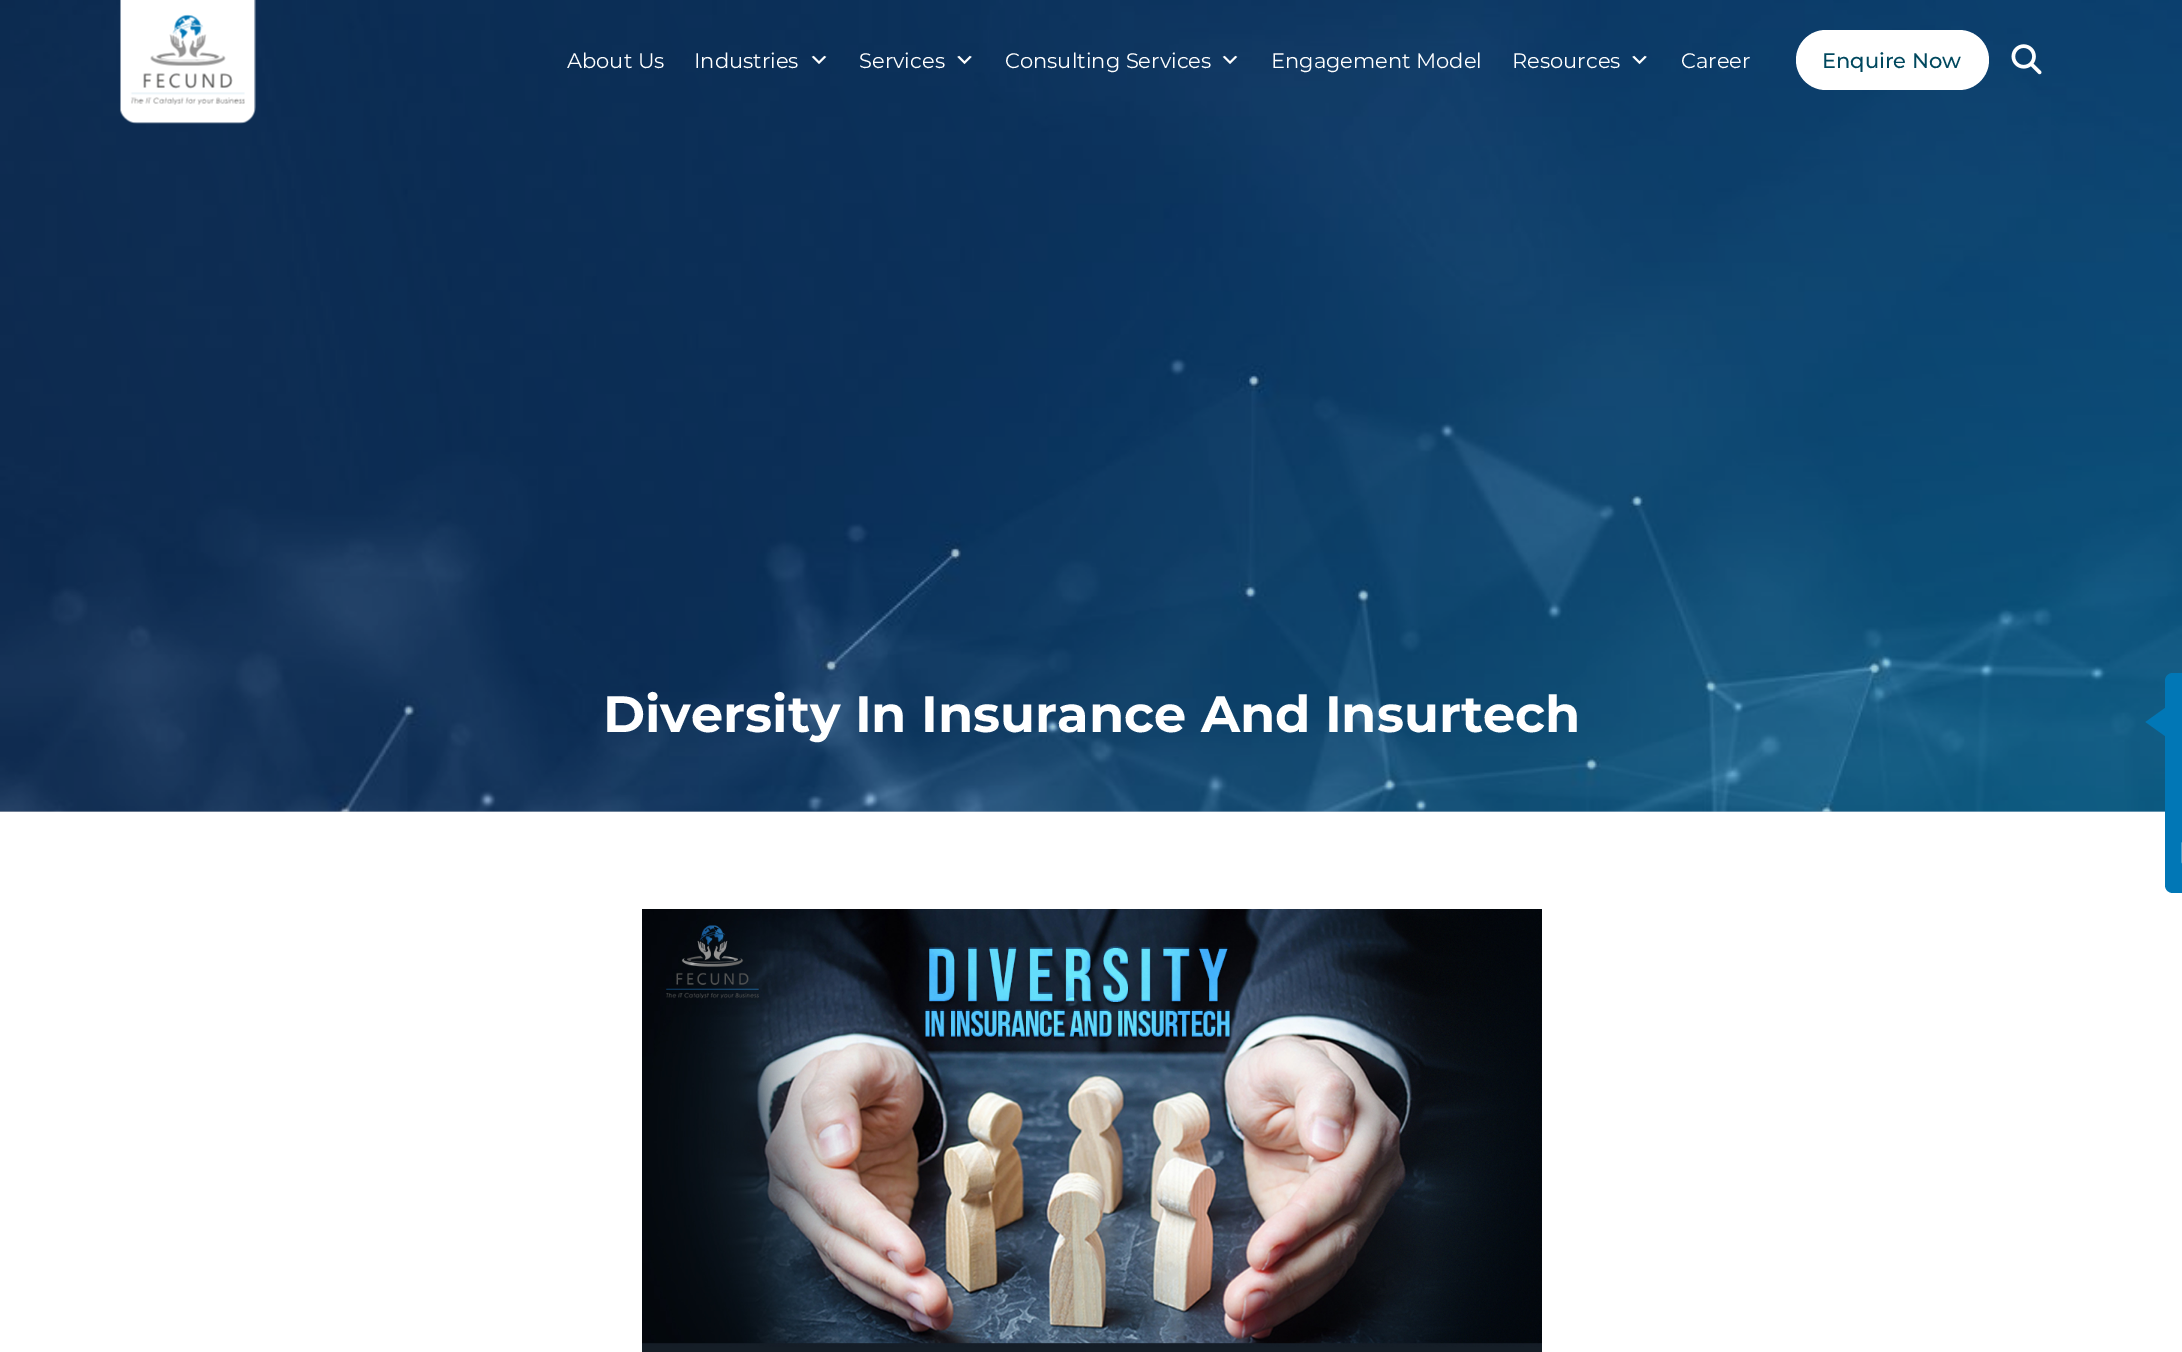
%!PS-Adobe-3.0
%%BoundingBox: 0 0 2182 1352
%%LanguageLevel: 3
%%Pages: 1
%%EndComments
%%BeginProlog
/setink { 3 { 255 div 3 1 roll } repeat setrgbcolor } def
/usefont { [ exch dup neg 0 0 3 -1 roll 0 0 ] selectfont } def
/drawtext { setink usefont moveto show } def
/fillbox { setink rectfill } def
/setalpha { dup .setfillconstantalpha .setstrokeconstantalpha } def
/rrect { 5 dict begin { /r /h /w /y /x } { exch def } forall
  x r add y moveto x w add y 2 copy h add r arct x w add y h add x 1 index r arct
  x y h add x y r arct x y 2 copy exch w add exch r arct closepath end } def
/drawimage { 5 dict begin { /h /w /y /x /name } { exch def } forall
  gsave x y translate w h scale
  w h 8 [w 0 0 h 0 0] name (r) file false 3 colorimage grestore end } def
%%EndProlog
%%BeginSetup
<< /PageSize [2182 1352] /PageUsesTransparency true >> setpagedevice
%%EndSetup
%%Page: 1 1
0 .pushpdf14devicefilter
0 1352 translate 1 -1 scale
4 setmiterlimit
0 0 2182 1352 255 255 255 fillbox
(assets/img7.rgb) 0 0 2182 812 drawimage
0.28 setalpha
gsave 0 0 moveto 2182 0 lineto 2182 812 lineto 0 812 lineto closepath clip newpath
<< /ShadingType 2 /ColorSpace /DeviceRGB /Coords [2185 7.6 -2.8 804] /Extend [true true] /Function << /FunctionType 2 /Domain [0 1] /C0 [0 0.318 0.565] /C1 [0 0.039 0.145] /N 1 >> >> shfill grestore
1 setalpha
(assets/img1.rgb) 120 0 136 124 drawimage
(About Us) 567 68 /Montserrat-Regular 21 255 255 255 drawtext
(Industries) 694 68 /Montserrat-Regular 21 255 255 255 drawtext
(assets/img2.rgb) 811 55 16 9 drawimage
(Services) 859 68 /Montserrat-Regular 21 255 255 255 drawtext
(assets/img3.rgb) 957 55 15 10 drawimage
(Consulting Services) 1005 68 /Montserrat-Regular 21 255 255 255 drawtext
(assets/img4.rgb) 1222 55 16 9 drawimage
(Engagement Model) 1271 68 /Montserrat-Regular 21 255 255 255 drawtext
(Resources) 1512 68 /Montserrat-Regular 21 255 255 255 drawtext
(assets/img5.rgb) 1632 55 15 10 drawimage
(Career) 1681 68 /Montserrat-Regular 21 255 255 255 drawtext
1796 30 193 60 30 rrect fill
(Enquire Now) 1822 68 /Montserrat-Medium 21 0 72 94 drawtext
(assets/img6.rgb) 2011 44 31 31 drawimage
(Diversity In Insurance And Insurtech) 603 732 /Montserrat-Bold 51 255 255 255 drawtext
1 119 182 setink
2165 885 moveto 2165 681 lineto 2165 676 2169 673 2173 673 curveto 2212 673 lineto 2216 673 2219 676 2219 681 curveto 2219 885 lineto 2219 890 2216 893 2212 893 curveto 2173 893 lineto 2169 893 2165 890 2165 885 curveto closepath fill
2166.5 707 moveto 2166.5 737 lineto 2145.5 722 lineto closepath fill
(assets/img8.rgb) 2181 842 1 22 drawimage
(assets/img9.rgb) 642 909 900 443 drawimage
.poppdf14devicefilter showpage
%%EOF
